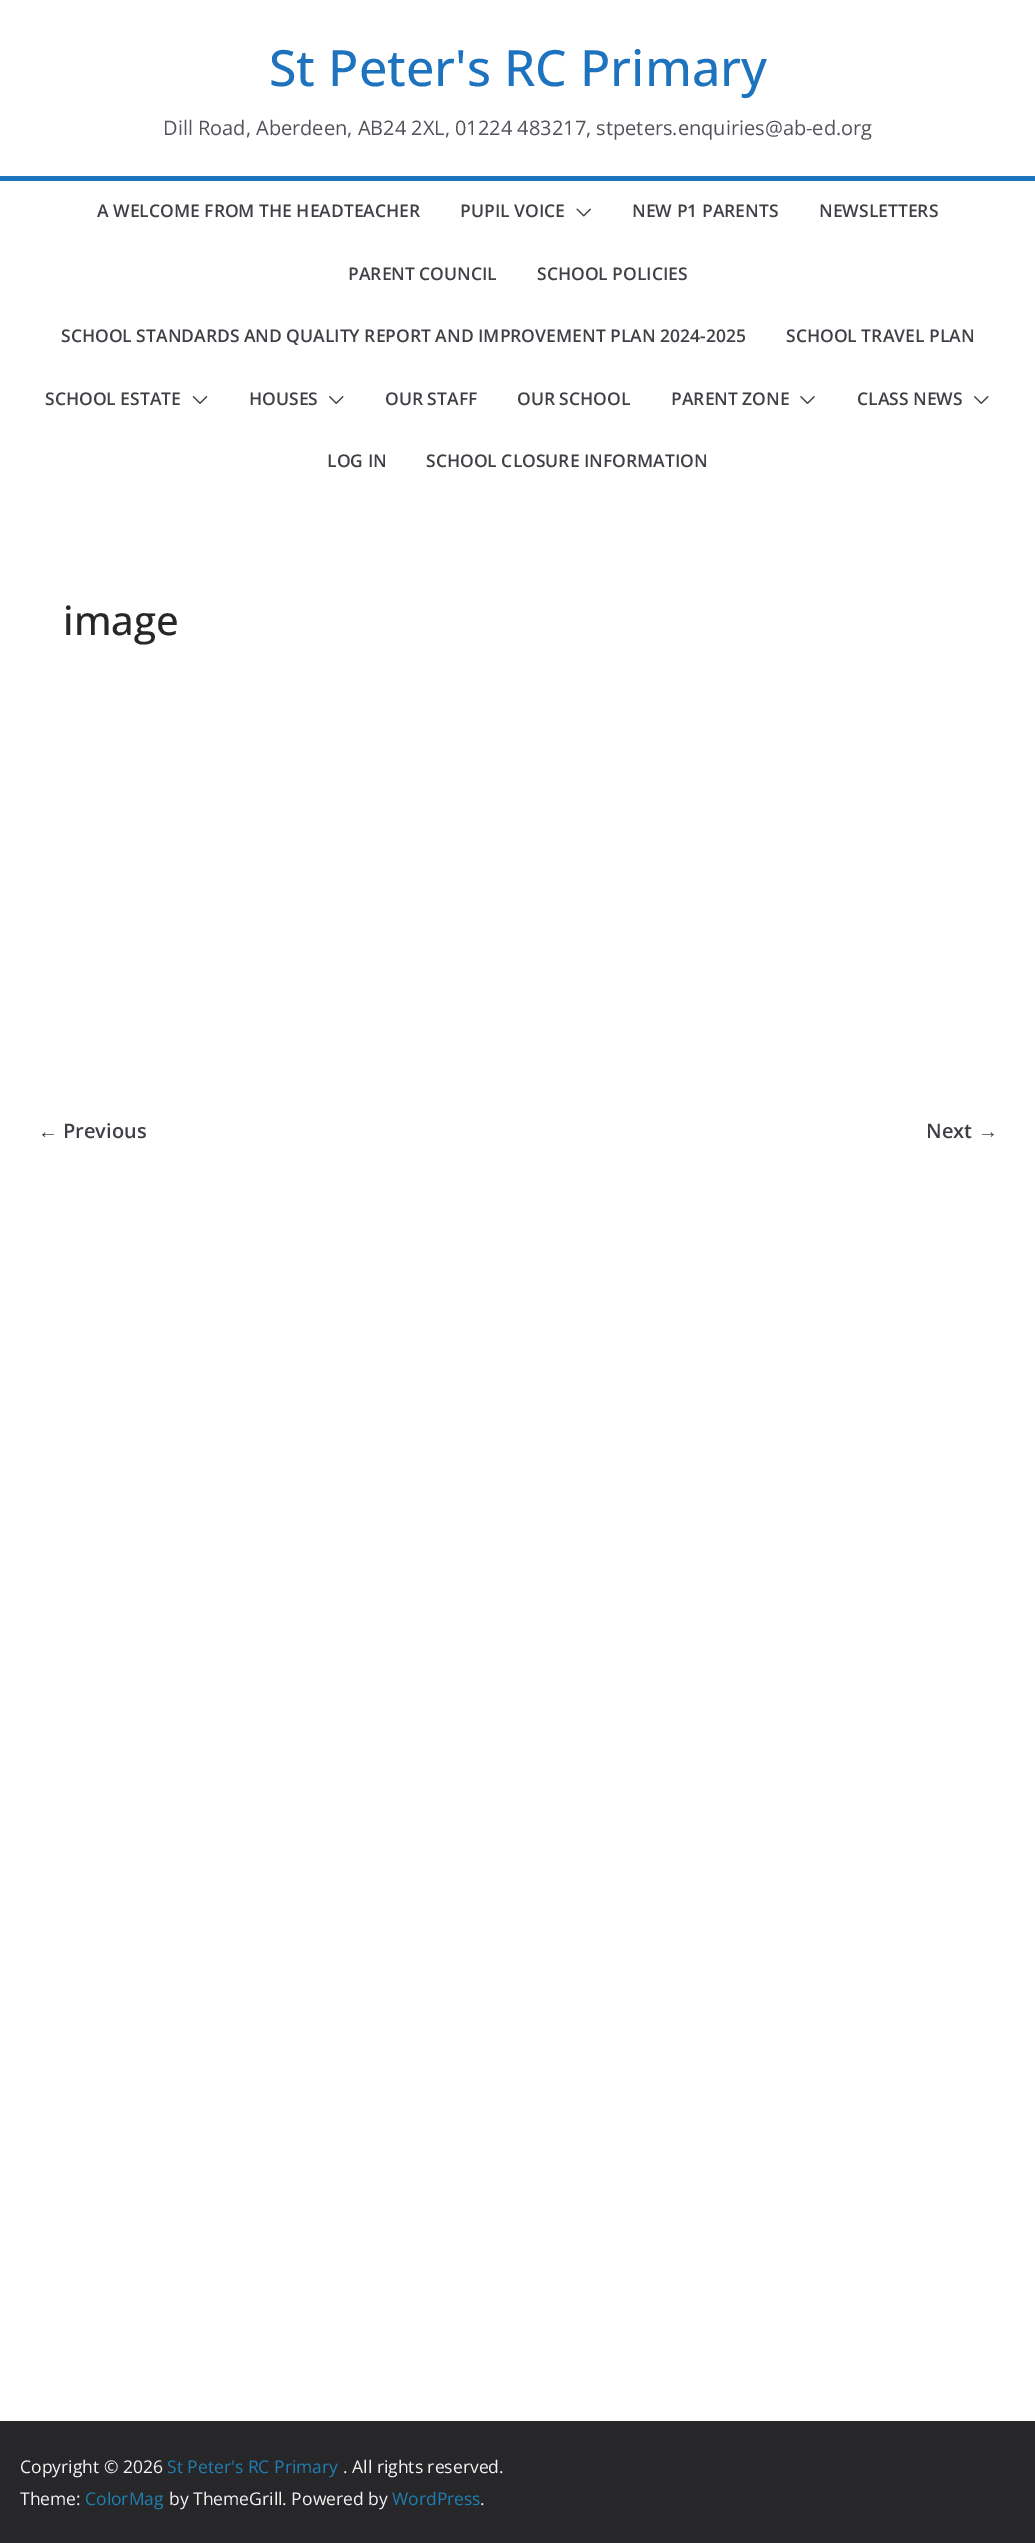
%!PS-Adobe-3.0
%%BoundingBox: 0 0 1035 2543
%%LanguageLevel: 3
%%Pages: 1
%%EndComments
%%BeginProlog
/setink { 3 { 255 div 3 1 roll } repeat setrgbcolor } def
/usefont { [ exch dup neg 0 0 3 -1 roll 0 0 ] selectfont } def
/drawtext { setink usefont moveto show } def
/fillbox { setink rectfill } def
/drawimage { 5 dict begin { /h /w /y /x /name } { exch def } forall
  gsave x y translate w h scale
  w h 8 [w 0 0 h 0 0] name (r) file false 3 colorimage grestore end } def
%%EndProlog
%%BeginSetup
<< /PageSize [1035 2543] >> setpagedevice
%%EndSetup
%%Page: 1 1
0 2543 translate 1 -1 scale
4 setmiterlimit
0 0 1035 2543 255 255 255 fillbox
(St Peter's RC Primary) 269 86 /OpenSans-Medium 50 30 115 190 drawtext
(Dill Road, Aberdeen, AB24 2XL, 01224 483217, stpeters.enquiries@ab-ed.org) 163 135 /OpenSans-Regular 20 82 82 91 drawtext
0 176 1035 5 30 115 190 fillbox
(A WELCOME FROM THE HEADTEACHER) 97 217 /OpenSans-SemiBold 17.5 63 63 70 drawtext
(PUPIL VOICE) 460 217 /OpenSans-SemiBold 17.5 63 63 70 drawtext
(assets/img1.rgb) 576 208 15 9 drawimage
(NEW P1 PARENTS) 632 217 /OpenSans-SemiBold 17.5 63 63 70 drawtext
(NEWSLETTERS) 819 217 /OpenSans-SemiBold 17.5 63 63 70 drawtext
(PARENT COUNCIL) 348 280 /OpenSans-SemiBold 17.5 63 63 70 drawtext
(SCHOOL POLICIES) 537 280 /OpenSans-SemiBold 17.5 63 63 70 drawtext
(SCHOOL STANDARDS AND QUALITY REPORT AND IMPROVEMENT PLAN 2024-2025) 61 342 /OpenSans-SemiBold 17.5 63 63 70 drawtext
(SCHOOL TRAVEL PLAN) 786 342 /OpenSans-SemiBold 17.5 63 63 70 drawtext
(SCHOOL ESTATE) 45 405 /OpenSans-SemiBold 17.5 63 63 70 drawtext
(assets/img2.rgb) 192 396 16 8 drawimage
(HOUSES) 249 405 /OpenSans-SemiBold 17.5 63 63 70 drawtext
(assets/img3.rgb) 329 396 15 8 drawimage
(OUR STAFF) 385 405 /OpenSans-SemiBold 17.5 63 63 70 drawtext
(OUR SCHOOL) 517 405 /OpenSans-SemiBold 17.5 63 63 70 drawtext
(PARENT ZONE) 671 405 /OpenSans-SemiBold 17.5 63 63 70 drawtext
(assets/img4.rgb) 800 396 15 8 drawimage
(CLASS NEWS) 857 405 /OpenSans-SemiBold 17.5 63 63 70 drawtext
(assets/img3.rgb) 974 396 15 8 drawimage
(LOG IN) 327 467 /OpenSans-SemiBold 17.5 63 63 70 drawtext
(SCHOOL CLOSURE INFORMATION) 426 467 /OpenSans-SemiBold 17.5 63 63 70 drawtext
(image) 63 635 /OpenSans-Medium 40 39 39 42 drawtext
(←) 38 1138 /LiberationSerif-Bold 20 63 63 70 drawtext
(Previous) 63 1138 /OpenSans-SemiBold 20 63 63 70 drawtext
(Next) 926 1138 /OpenSans-SemiBold 20 63 63 70 drawtext
(→) 978 1138 /LiberationSerif-Bold 20 63 63 70 drawtext
0 2421 1035 122 39 39 42 fillbox
(Copyright © 2026) 20 2473 /OpenSans-Regular 17.5 244 244 245 drawtext
(St Peter's RC Primary) 167 2473 /OpenSans-Regular 17.5 32 125 175 drawtext
(. All rights reserved.) 343 2473 /OpenSans-Regular 17.5 244 244 245 drawtext
(Theme:) 20 2505 /OpenSans-Regular 17.5 244 244 245 drawtext
(ColorMag) 85 2505 /OpenSans-Regular 17.5 32 125 175 drawtext
(by ThemeGrill. Powered by) 169 2505 /OpenSans-Regular 17.5 244 244 245 drawtext
(WordPress) 392 2505 /OpenSans-Regular 17.5 32 125 175 drawtext
(.) 480 2505 /OpenSans-Regular 17.5 244 244 245 drawtext
showpage
%%EOF
